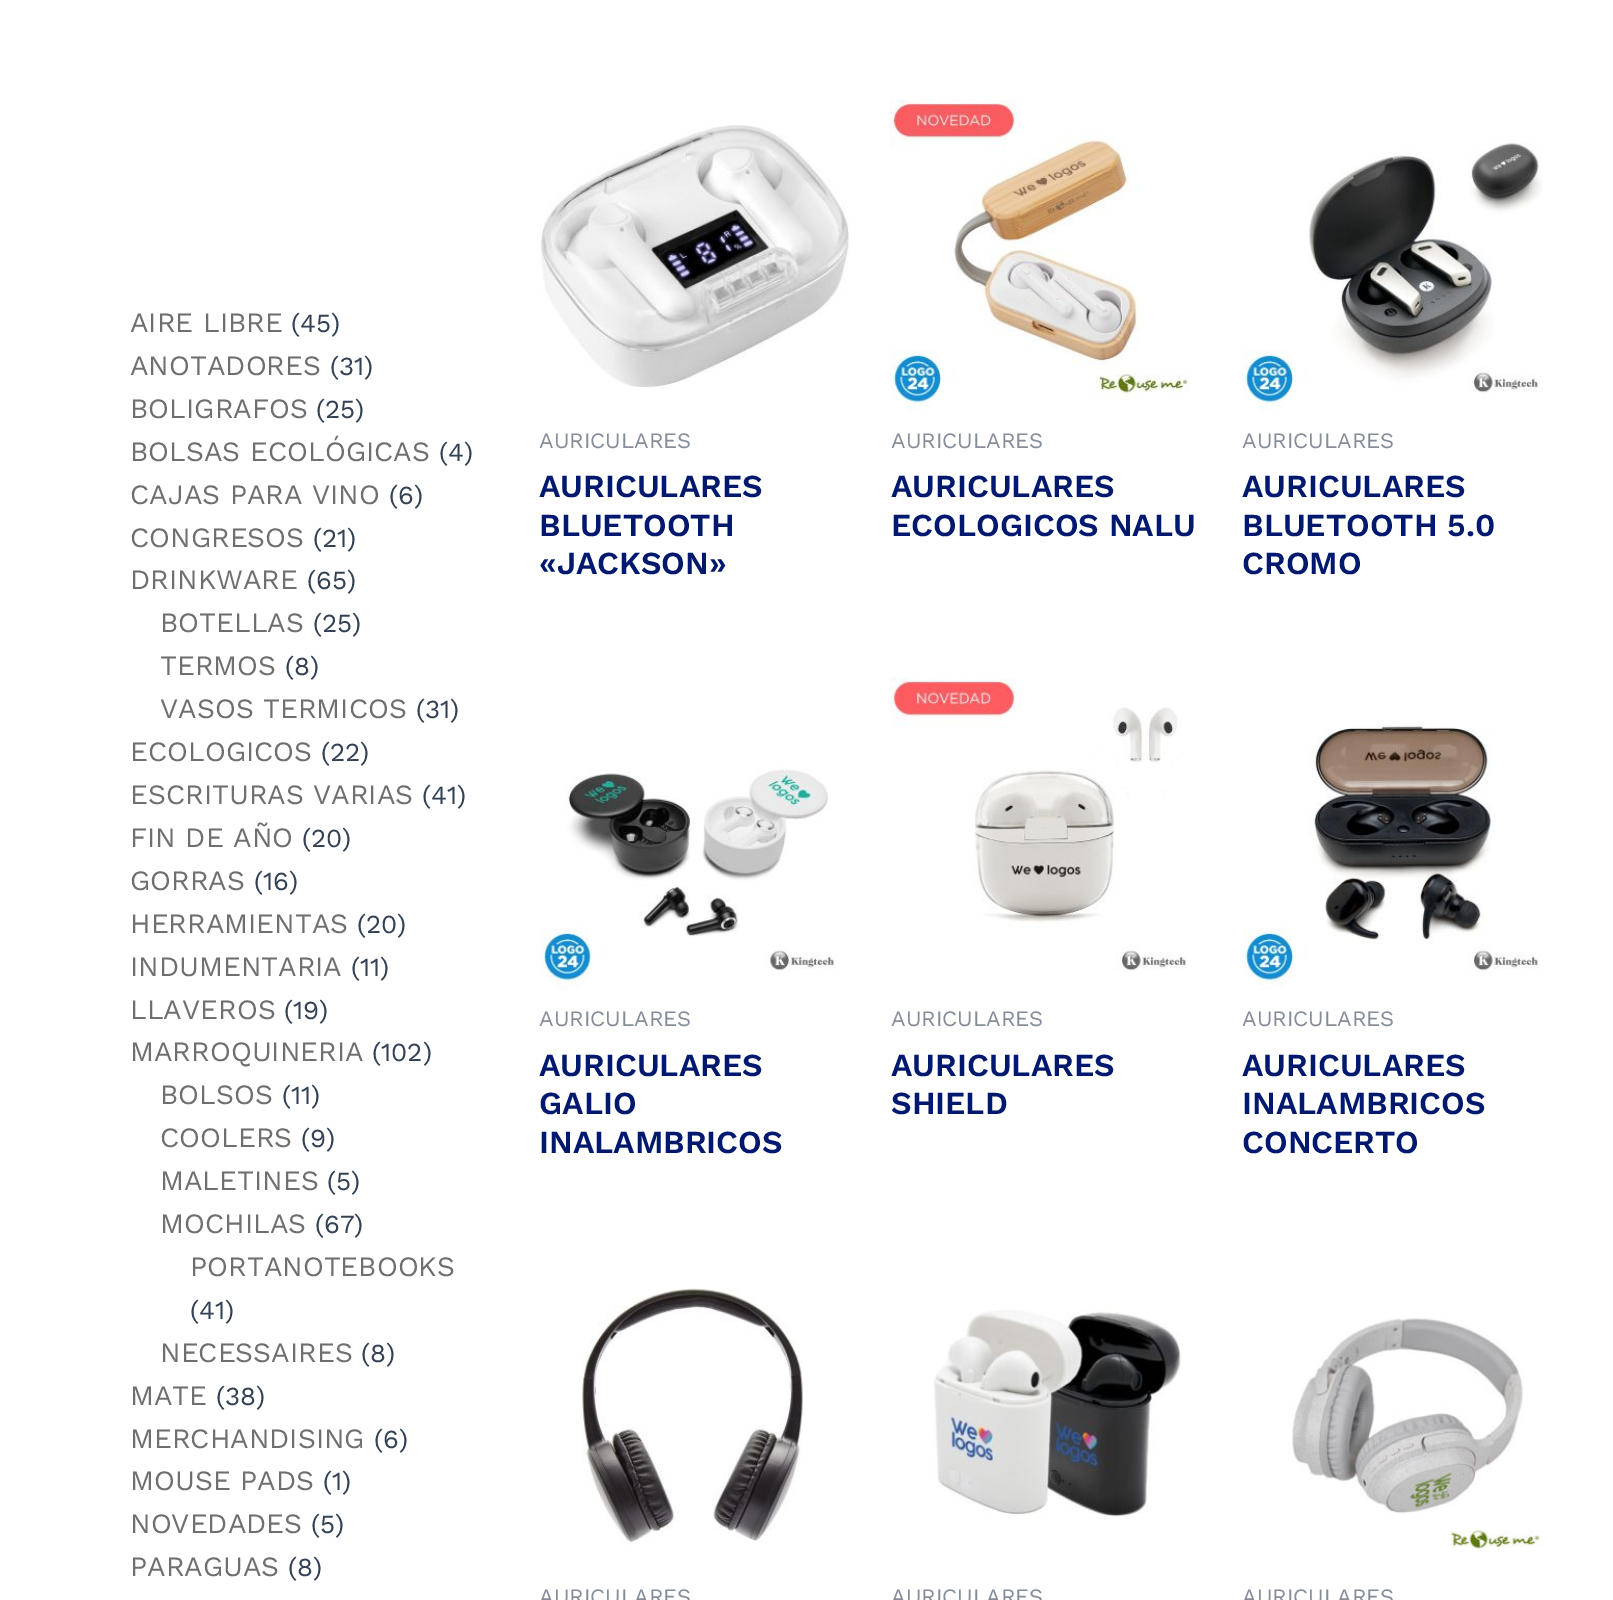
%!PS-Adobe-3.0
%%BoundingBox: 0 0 1613 1600
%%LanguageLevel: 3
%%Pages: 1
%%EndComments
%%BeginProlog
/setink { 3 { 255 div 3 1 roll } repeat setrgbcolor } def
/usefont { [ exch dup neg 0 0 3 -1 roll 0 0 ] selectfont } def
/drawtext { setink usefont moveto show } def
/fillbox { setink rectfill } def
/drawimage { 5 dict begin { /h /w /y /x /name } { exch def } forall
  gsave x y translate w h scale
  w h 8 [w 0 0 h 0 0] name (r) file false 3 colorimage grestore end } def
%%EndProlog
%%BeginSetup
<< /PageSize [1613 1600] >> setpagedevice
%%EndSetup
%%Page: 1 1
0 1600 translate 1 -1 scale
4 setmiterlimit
0 0 1613 1600 255 255 255 fillbox
(AIRE LIBRE) 130 332 /WorkSans-Regular 28 110 111 112 drawtext
(\(45\)) 291 332 /WorkSans-Regular 26 51 65 85 drawtext
(ANOTADORES) 130 375 /WorkSans-Regular 28 110 111 112 drawtext
(\(31\)) 330 375 /WorkSans-Regular 26 51 65 85 drawtext
(BOLIGRAFOS) 130 418 /WorkSans-Regular 28 110 111 112 drawtext
(\(25\)) 316 418 /WorkSans-Regular 26 51 65 85 drawtext
(BOLSAS ECOLÓGICAS) 130 461 /WorkSans-Regular 28 110 111 112 drawtext
(\(4\)) 439 461 /WorkSans-Regular 26 51 65 85 drawtext
(CAJAS PARA VINO) 130 504 /WorkSans-Regular 28 110 111 112 drawtext
(\(6\)) 389 504 /WorkSans-Regular 26 51 65 85 drawtext
(CONGRESOS) 130 547 /WorkSans-Regular 28 110 111 112 drawtext
(\(21\)) 313 547 /WorkSans-Regular 26 51 65 85 drawtext
(DRINKWARE) 130 589 /WorkSans-Regular 28 110 111 112 drawtext
(\(65\)) 307 589 /WorkSans-Regular 26 51 65 85 drawtext
(BOTELLAS) 160 632 /WorkSans-Regular 28 110 111 112 drawtext
(\(25\)) 313 632 /WorkSans-Regular 26 51 65 85 drawtext
(TERMOS) 160 675 /WorkSans-Regular 28 110 111 112 drawtext
(\(8\)) 285 675 /WorkSans-Regular 26 51 65 85 drawtext
(VASOS TERMICOS) 160 718 /WorkSans-Regular 28 110 111 112 drawtext
(\(31\)) 416 718 /WorkSans-Regular 26 51 65 85 drawtext
(ECOLOGICOS) 130 761 /WorkSans-Regular 28 110 111 112 drawtext
(\(22\)) 321 761 /WorkSans-Regular 26 51 65 85 drawtext
(ESCRITURAS VARIAS) 130 804 /WorkSans-Regular 28 110 111 112 drawtext
(\(41\)) 422 804 /WorkSans-Regular 26 51 65 85 drawtext
(FIN DE AÑO) 130 847 /WorkSans-Regular 28 110 111 112 drawtext
(\(20\)) 302 847 /WorkSans-Regular 26 51 65 85 drawtext
(GORRAS) 130 890 /WorkSans-Regular 28 110 111 112 drawtext
(\(16\)) 254 890 /WorkSans-Regular 26 51 65 85 drawtext
(HERRAMIENTAS) 130 933 /WorkSans-Regular 28 110 111 112 drawtext
(\(20\)) 357 933 /WorkSans-Regular 26 51 65 85 drawtext
(INDUMENTARIA) 130 976 /WorkSans-Regular 28 110 111 112 drawtext
(\(11\)) 351 976 /WorkSans-Regular 26 51 65 85 drawtext
(LLAVEROS) 130 1019 /WorkSans-Regular 28 110 111 112 drawtext
(\(19\)) 284 1019 /WorkSans-Regular 26 51 65 85 drawtext
(MARROQUINERIA) 130 1061 /WorkSans-Regular 28 110 111 112 drawtext
(\(102\)) 372 1061 /WorkSans-Regular 26 51 65 85 drawtext
(BOLSOS) 160 1104 /WorkSans-Regular 28 110 111 112 drawtext
(\(11\)) 282 1104 /WorkSans-Regular 26 51 65 85 drawtext
(COOLERS) 160 1147 /WorkSans-Regular 28 110 111 112 drawtext
(\(9\)) 301 1147 /WorkSans-Regular 26 51 65 85 drawtext
(MALETINES) 160 1190 /WorkSans-Regular 28 110 111 112 drawtext
(\(5\)) 327 1190 /WorkSans-Regular 26 51 65 85 drawtext
(MOCHILAS) 160 1233 /WorkSans-Regular 28 110 111 112 drawtext
(\(67\)) 315 1233 /WorkSans-Regular 26 51 65 85 drawtext
(PORTANOTEBOOKS) 190 1276 /WorkSans-Regular 28 110 111 112 drawtext
(\(41\)) 190 1319 /WorkSans-Regular 26 51 65 85 drawtext
(NECESSAIRES) 160 1362 /WorkSans-Regular 28 110 111 112 drawtext
(\(8\)) 361 1362 /WorkSans-Regular 26 51 65 85 drawtext
(MATE) 130 1405 /WorkSans-Regular 28 110 111 112 drawtext
(\(38\)) 216 1405 /WorkSans-Regular 26 51 65 85 drawtext
(MERCHANDISING) 130 1448 /WorkSans-Regular 28 110 111 112 drawtext
(\(6\)) 374 1448 /WorkSans-Regular 26 51 65 85 drawtext
(MOUSE PADS) 130 1490 /WorkSans-Regular 28 110 111 112 drawtext
(\(1\)) 323 1490 /WorkSans-Regular 26 51 65 85 drawtext
(NOVEDADES) 130 1533 /WorkSans-Regular 28 110 111 112 drawtext
(\(5\)) 311 1533 /WorkSans-Regular 26 51 65 85 drawtext
(PARAGUAS) 130 1576 /WorkSans-Regular 28 110 111 112 drawtext
(\(8\)) 288 1576 /WorkSans-Regular 26 51 65 85 drawtext
(assets/img1.rgb) 540 125 310 265 drawimage
(AURICULARES) 539 448 /WorkSans-Regular 22 133 141 153 drawtext
(AURICULARES) 539 497 /WorkSans-SemiBold 32 0 25 111 drawtext
(BLUETOOTH) 539 536 /WorkSans-SemiBold 32 0 25 111 drawtext
(«JACKSON») 539 574 /WorkSans-SemiBold 32 0 25 111 drawtext
(assets/img2.rgb) 890 100 300 312 drawimage
(AURICULARES) 891 448 /WorkSans-Regular 22 133 141 153 drawtext
(AURICULARES) 891 497 /WorkSans-SemiBold 32 0 25 111 drawtext
(ECOLOGICOS NALU) 891 536 /WorkSans-SemiBold 32 0 25 111 drawtext
(assets/img3.rgb) 1242 142 301 270 drawimage
(AURICULARES) 1242 448 /WorkSans-Regular 22 133 141 153 drawtext
(AURICULARES) 1242 497 /WorkSans-SemiBold 32 0 25 111 drawtext
(BLUETOOTH 5.0) 1242 536 /WorkSans-SemiBold 32 0 25 111 drawtext
(CROMO) 1242 574 /WorkSans-SemiBold 32 0 25 111 drawtext
(assets/img4.rgb) 540 766 297 224 drawimage
(AURICULARES) 539 1026 /WorkSans-Regular 22 133 141 153 drawtext
(AURICULARES) 539 1076 /WorkSans-SemiBold 32 0 25 111 drawtext
(GALIO) 539 1114 /WorkSans-SemiBold 32 0 25 111 drawtext
(INALAMBRICOS) 539 1153 /WorkSans-SemiBold 32 0 25 111 drawtext
(assets/img5.rgb) 890 678 298 293 drawimage
(AURICULARES) 891 1026 /WorkSans-Regular 22 133 141 153 drawtext
(AURICULARES) 891 1076 /WorkSans-SemiBold 32 0 25 111 drawtext
(SHIELD) 891 1114 /WorkSans-SemiBold 32 0 25 111 drawtext
(assets/img6.rgb) 1242 721 299 269 drawimage
(AURICULARES) 1242 1026 /WorkSans-Regular 22 133 141 153 drawtext
(AURICULARES) 1242 1076 /WorkSans-SemiBold 32 0 25 111 drawtext
(INALAMBRICOS) 1242 1114 /WorkSans-SemiBold 32 0 25 111 drawtext
(CONCERTO) 1242 1153 /WorkSans-SemiBold 32 0 25 111 drawtext
(assets/img7.rgb) 581 1288 222 257 drawimage
(AURICULARES) 539 1604 /WorkSans-Regular 22 133 141 153 drawtext
(assets/img8.rgb) 933 1306 248 214 drawimage
(AURICULARES) 891 1604 /WorkSans-Regular 22 133 141 153 drawtext
(assets/img9.rgb) 1292 1318 249 233 drawimage
(AURICULARES) 1242 1604 /WorkSans-Regular 22 133 141 153 drawtext
showpage
%%EOF
